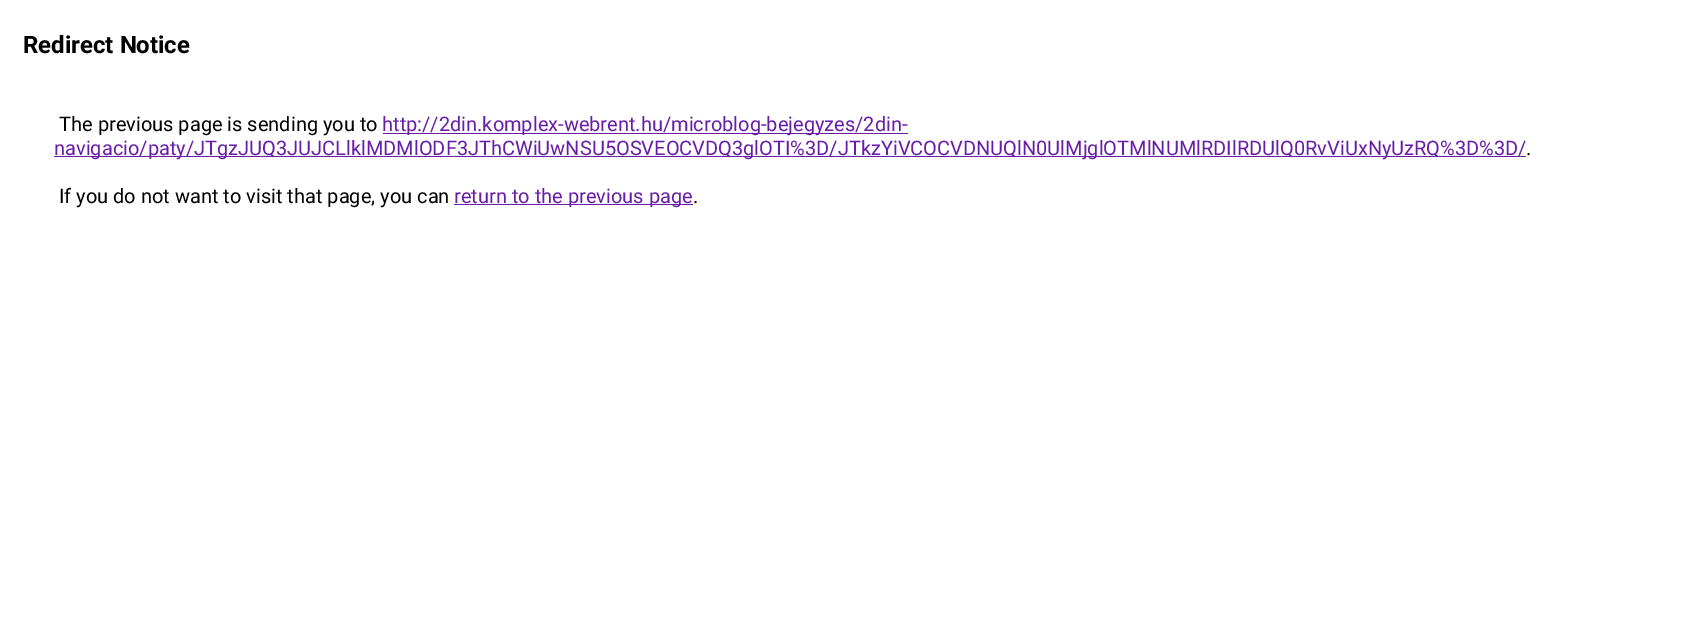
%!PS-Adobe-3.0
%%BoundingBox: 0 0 1686 617
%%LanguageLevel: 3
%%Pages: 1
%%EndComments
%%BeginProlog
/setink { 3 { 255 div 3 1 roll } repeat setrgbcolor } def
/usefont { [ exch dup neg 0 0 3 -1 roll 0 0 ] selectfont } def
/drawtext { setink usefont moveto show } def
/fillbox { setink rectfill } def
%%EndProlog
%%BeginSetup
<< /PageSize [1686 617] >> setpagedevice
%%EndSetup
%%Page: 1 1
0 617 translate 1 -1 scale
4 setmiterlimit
0 0 1686 617 255 255 255 fillbox
(Redirect Notice) 23 53 /Roboto-Bold 24 0 0 0 drawtext
(The previous page is sending you to) 59 131 /Roboto-Regular 20 0 0 0 drawtext
383 133 525 1 104 29 168 fillbox
(http://2din.komplex-webrent.hu/microblog-bejegyzes/2din-) 382 131 /Roboto-Regular 20 104 29 168 drawtext
54 156 1472 1 104 29 168 fillbox
(navigacio/paty/JTgzJUQ3JUJCLlklMDMlODF3JThCWiUwNSU5OSVEOCVDQ3glOTI%3D/JTkzYiVCOCVDNUQlN0UlMjglOTMlNUMlRDIlRDUlQ0RvViUxNyUzRQ%3D%3D/) 54 155 /Roboto-Regular 20 104 29 168 drawtext
(.) 1526 155 /Roboto-Regular 20 0 0 0 drawtext
(If you do not want to visit that page, you can) 59 203 /Roboto-Regular 20 0 0 0 drawtext
454 204 239 1 104 29 168 fillbox
(return to the previous page) 454 203 /Roboto-Regular 20 104 29 168 drawtext
(.) 693 203 /Roboto-Regular 20 0 0 0 drawtext
showpage
%%EOF
